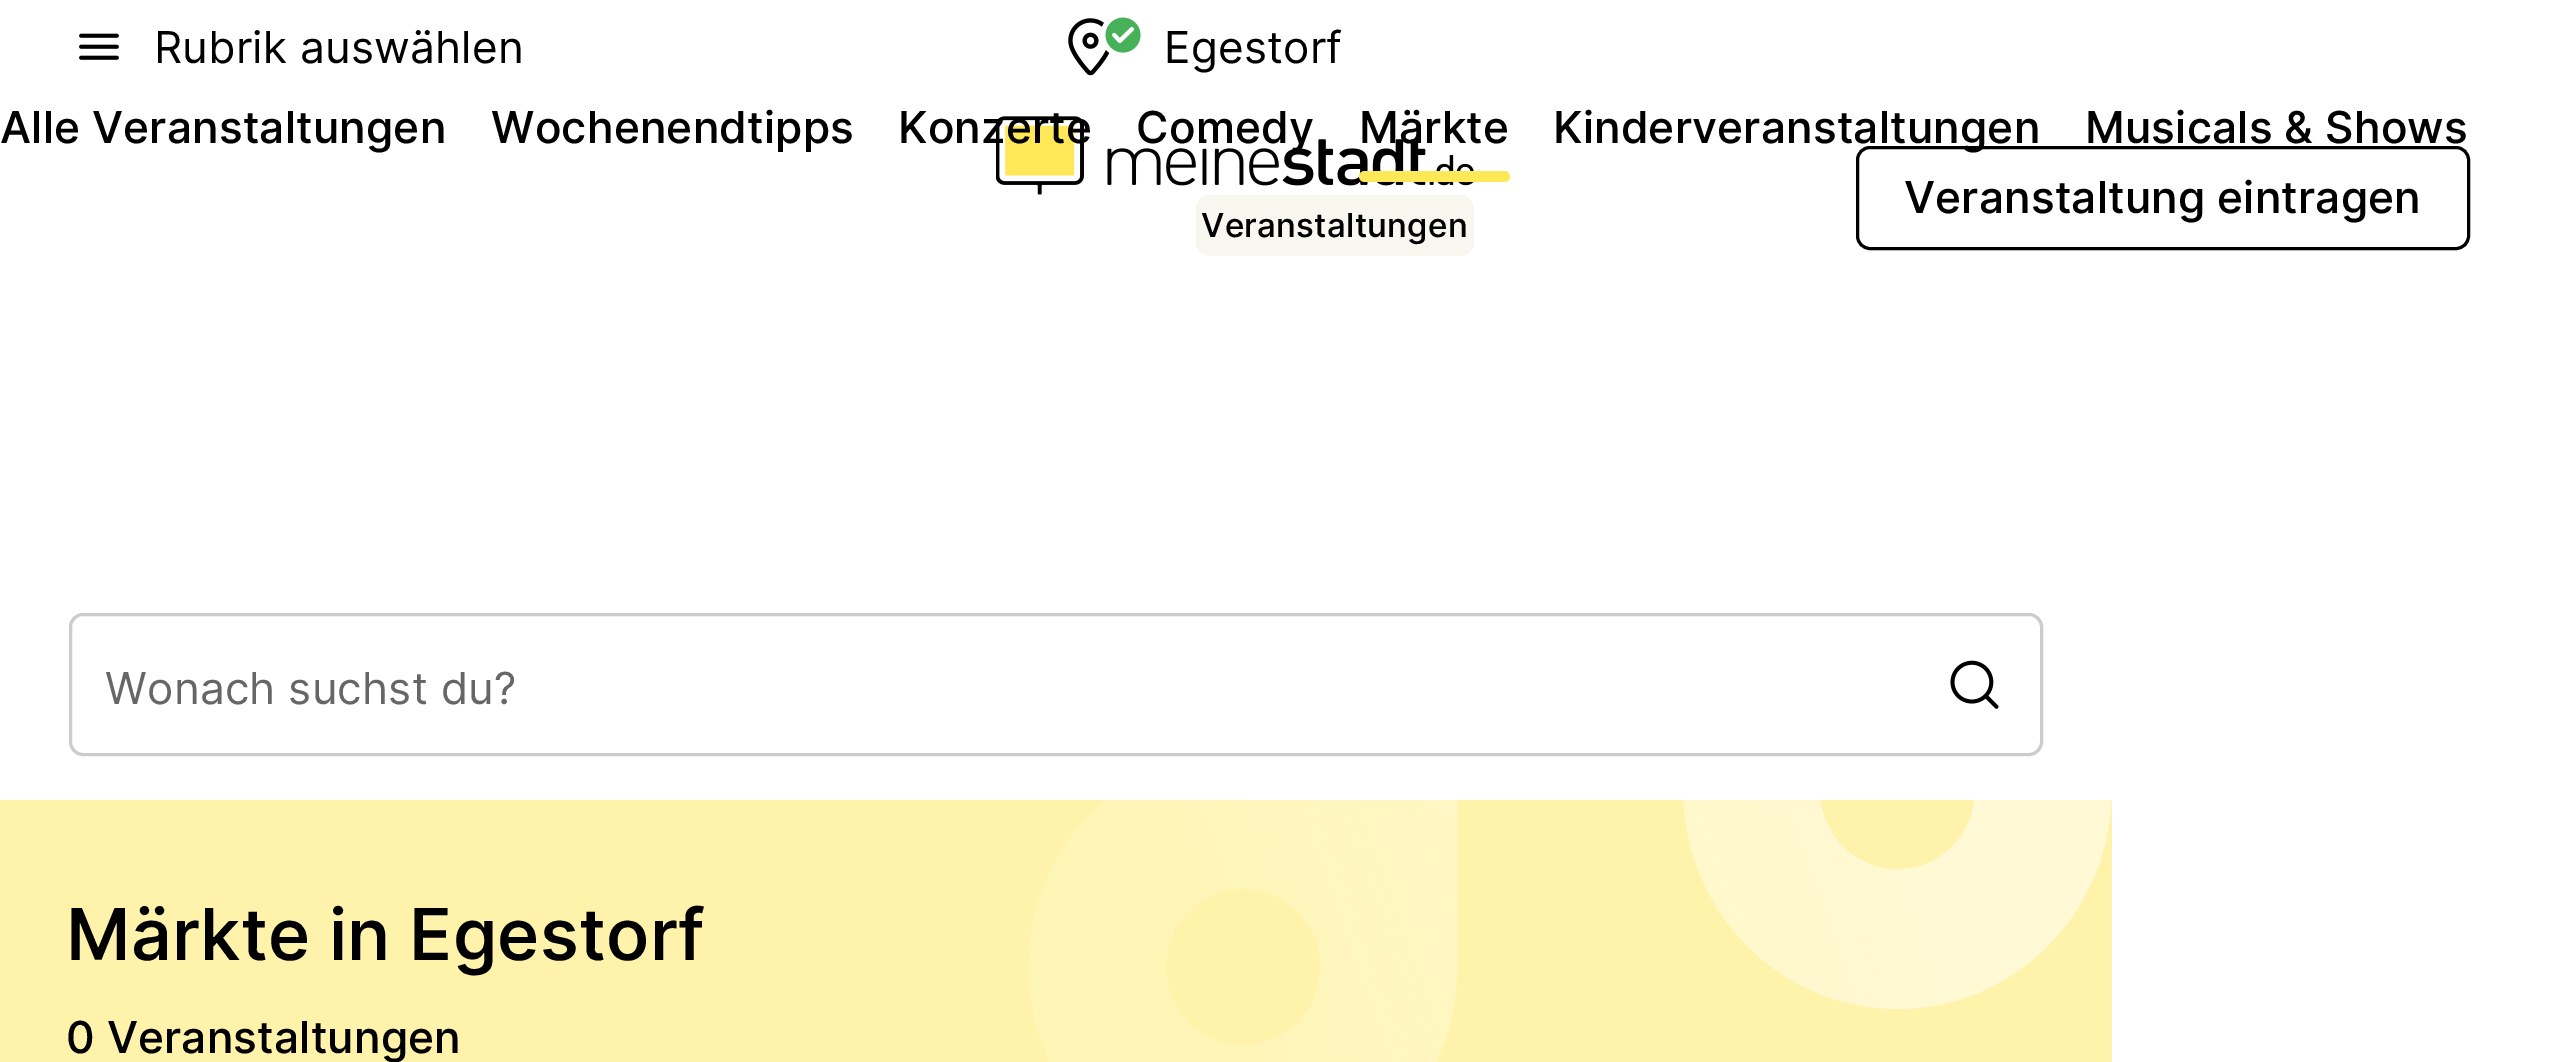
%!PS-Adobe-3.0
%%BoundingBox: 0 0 2549 1062
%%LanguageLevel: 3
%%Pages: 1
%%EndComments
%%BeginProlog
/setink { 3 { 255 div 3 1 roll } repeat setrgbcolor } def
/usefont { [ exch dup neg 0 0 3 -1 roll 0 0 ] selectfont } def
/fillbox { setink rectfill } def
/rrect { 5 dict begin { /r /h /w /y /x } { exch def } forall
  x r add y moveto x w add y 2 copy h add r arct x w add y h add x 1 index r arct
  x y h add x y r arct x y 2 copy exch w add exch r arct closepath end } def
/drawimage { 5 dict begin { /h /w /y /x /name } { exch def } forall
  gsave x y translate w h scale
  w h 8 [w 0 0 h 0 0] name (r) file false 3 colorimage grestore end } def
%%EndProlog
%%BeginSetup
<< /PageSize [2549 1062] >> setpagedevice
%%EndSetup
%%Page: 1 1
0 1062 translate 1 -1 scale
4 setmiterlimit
0 0 2549 1062 255 255 255 fillbox
(assets/img1.rgb) 79 33 40 27 drawimage
/Inter-Regular 44 usefont
0 0 0 setink
154 63 moveto 0.25 0 (Rubrik auswählen) ashow
(assets/img2.rgb) 1068 17 73 59 drawimage
1164 63 moveto 0.25 0 (Egestorf) ashow
/Inter-Medium 44 usefont
0 143 moveto 0.25 0 (Alle Veranstaltungen) ashow
491 143 moveto 0.25 0 (Wochenendtipps) ashow
(assets/img3.rgb) 996 116 478 79 drawimage
898 143 moveto 0.25 0 (Konzerte) ashow
1136 143 moveto 0.25 0 (Comedy) ashow
1359 143 moveto 0.25 0 (Märkte) ashow
255 232 87 setink
1359 171 151 11 5.5 rrect fill
0 0 0 setink
3 setlinewidth
1857.5 147.5 611 101 12.5 rrect stroke
1553 143 moveto 0.25 0 (Kinderveranstaltungen) ashow
2085 143 moveto 0.25 0 (Musicals & Shows) ashow
1904 213 moveto 0.25 0 (Veranstaltung eintragen) ashow
247 246 239 setink
1196 195 278 61 14 rrect fill
/Inter-Medium 33 usefont
0 0 0 setink
1201 237 moveto 0.25 0 (Veranstaltungen) ashow
204 204 204 setink
70.5 614.5 1971 140 12.5 rrect stroke
/Inter-Regular 44 usefont
102 102 102 setink
105 704 moveto 0.25 0 (Wonach suchst du?) ashow
(assets/img4.rgb) 1950 660 49 49 drawimage
0 800 2112 262 255 243 171 fillbox
/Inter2-Medium 71.5 usefont
0 0 0 setink
66 960 moveto 0.25 0 (Märkte in Egestorf) ashow
/Inter-Medium 44 usefont
66 1053 moveto 0.25 0 (0 Veranstaltungen) ashow
(assets/img5.rgb) 1028 800 1084 262 drawimage
showpage
%%EOF
